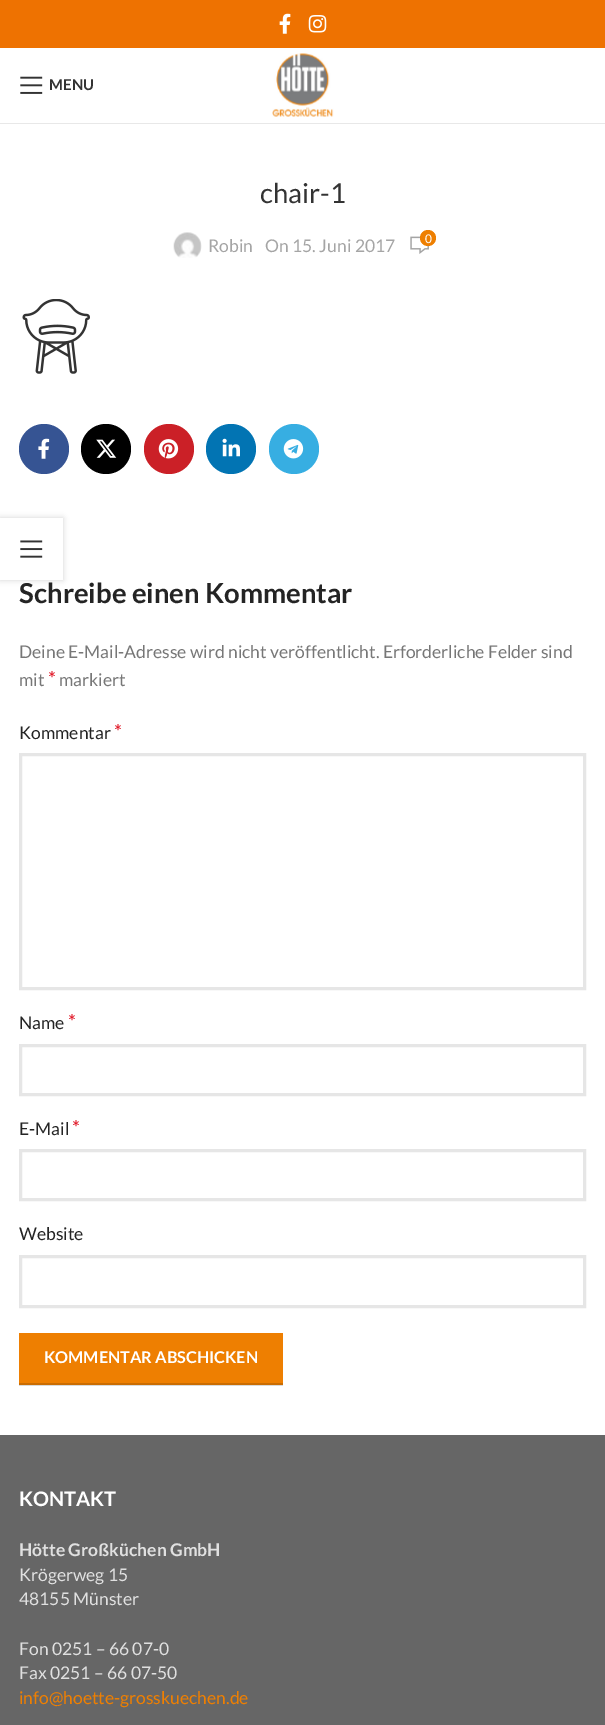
%!PS-Adobe-3.0
%%BoundingBox: 0 0 605 1725
%%LanguageLevel: 3
%%Pages: 1
%%EndComments
%%BeginProlog
/setink { 3 { 255 div 3 1 roll } repeat setrgbcolor } def
/usefont { [ exch dup neg 0 0 3 -1 roll 0 0 ] selectfont } def
/drawtext { setink usefont moveto show } def
/fillbox { setink rectfill } def
/setalpha { dup .setfillconstantalpha .setstrokeconstantalpha } def
/disc { newpath 0 360 arc closepath } def
/rrect { 5 dict begin { /r /h /w /y /x } { exch def } forall
  x r add y moveto x w add y 2 copy h add r arct x w add y h add x 1 index r arct
  x y h add x y r arct x y 2 copy exch w add exch r arct closepath end } def
/softshadow { 12 dict begin { /a /b /q /h /w /y /x } { exch def } forall gsave /was 0 def
  9 -2 -9 { dup b mul 4 div /e exch def 1 sub .425 mul 2.718 exch exp 1 add a .99 .min exch div /now exch def
    1 1 now sub 1 was sub div sub setalpha /was now def
    w h .min e 2 mul add 0 gt { x e sub y e sub w e 2 mul add h e 2 mul add
      q e add b .6 mul add w h .min 2 div e add .min 0 .max rrect fill } if } for grestore end } def
/drawimage { 5 dict begin { /h /w /y /x /name } { exch def } forall
  gsave x y translate w h scale
  w h 8 [w 0 0 h 0 0] name (r) file false 3 colorimage grestore end } def
%%EndProlog
%%BeginSetup
<< /PageSize [605 1725] /PageUsesTransparency true >> setpagedevice
%%EndSetup
%%Page: 1 1
0 .pushpdf14devicefilter
0 1725 translate 1 -1 scale
4 setmiterlimit
0 0 605 1725 255 255 255 fillbox
19 1385 264 1 217 217 217 fillbox
0 0 605 48 238 114 1 fillbox
(assets/img1.rgb) 279 13 12 21 drawimage
(assets/img2.rgb) 308 15 19 18 drawimage
0 123 605 1 232 232 232 fillbox
(assets/img3.rgb) 20 76 23 18 drawimage
(MENU) 49 90 /Lato-Bold 15 51 51 51 drawtext
(assets/img4.rgb) 272 53 62 64 drawimage
(chair-1) 260 203 /Lato-Regular 27.5 51 51 51 drawtext
(assets/img5.rgb) 173 232 29 26 drawimage
(Robin) 208 252 /Lato-Regular 17.5 165 165 165 drawtext
(On 15. Juni 2017) 265 252 /Lato-Regular 17.5 165 165 165 drawtext
(assets/img6.rgb) 410 236 19 18 drawimage
238 127 1 setink
428 238 8 disc fill
(0) 425 243 /Lato-Regular 12 255 255 255 drawtext
(assets/img7.rgb) 22 299 68 75 drawimage
54 84 147 setink
44 449 25 disc fill
(assets/img8.rgb) 38 438 12 21 drawimage
0 0 0 setink
106 449 25 disc fill
(assets/img9.rgb) 96 439 21 19 drawimage
203 32 39 setink
169 449 25 disc fill
(assets/img10.rgb) 158 439 21 20 drawimage
2 116 179 setink
231 449 25 disc fill
(assets/img11.rgb) 222 438 18 19 drawimage
55 174 226 setink
294 449 25 disc fill
(assets/img12.rgb) 283 439 21 20 drawimage
(Schreibe einen Kommentar) 19 603 /Lato-Bold 27.5 36 36 36 drawtext
(Deine E-Mail-Adresse wird nicht veröffentlicht. Erforderliche Felder sind) 19 658 /Lato-Regular 17.5 119 119 119 drawtext
(mit) 19 686 /Lato-Regular 17.5 119 119 119 drawtext
(*) 48 686 /Lato-Regular 20 224 16 32 drawtext
(markiert) 59 686 /Lato-Regular 17.5 119 119 119 drawtext
(Kommentar) 19 739 /Lato-Regular 17.5 36 36 36 drawtext
(*) 114 739 /Lato-Regular 20 224 16 32 drawtext
230 230 230 setink
3 setlinewidth
20.5 754.5 564 234 rectstroke
(Name) 19 1029 /Lato-Regular 17.5 36 36 36 drawtext
(*) 68 1029 /Lato-Regular 20 224 16 32 drawtext
230 230 230 setink
20.5 1045.5 564 49 rectstroke
(E-Mail) 19 1135 /Lato-Regular 17.5 36 36 36 drawtext
(*) 72 1135 /Lato-Regular 20 224 16 32 drawtext
230 230 230 setink
20.5 1150.5 564 49 rectstroke
(Website) 19 1240 /Lato-Regular 17.5 36 36 36 drawtext
230 230 230 setink
20.5 1256.5 564 50 rectstroke
19 1333 264 50 238 127 1 fillbox
19 1383 264 2 202 108 1 fillbox
(KOMMENTAR ABSCHICKEN) 44 1363 /Lato-Bold 16.25 255 255 255 drawtext
0 1435 605 290 102 102 102 fillbox
(KONTAKT) 19 1506 /Lato-Bold 20 255 255 255 drawtext
(Hötte Großküchen GmbH) 19 1556 /Lato-Bold 17.5 224 224 224 drawtext
(Krögerweg 15) 19 1581 /Lato-Regular 17.5 224 224 224 drawtext
(48155 Münster) 19 1605 /Lato-Regular 17.5 224 224 224 drawtext
(Fon 0251 – 66 07-0) 19 1655 /Lato-Regular 17.5 224 224 224 drawtext
(Fax 0251 – 66 07-50) 19 1679 /Lato-Regular 17.5 224 224 224 drawtext
(info@hoette-grosskuechen.de) 19 1704 /Lato-Regular 17.5 238 127 1 drawtext
gsave
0 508 moveto 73 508 lineto 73 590 lineto 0 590 lineto closepath 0 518 moveto 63 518 lineto 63 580 lineto 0 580 lineto closepath eoclip newpath
0 0 0 setink
0 518 63 62 0 3 0.17 softshadow
grestore
0.9 setalpha
62 518 1 62 255 255 255 fillbox
1 setalpha
(assets/img13.rgb) 20 540 23 18 drawimage
.poppdf14devicefilter showpage
%%EOF
